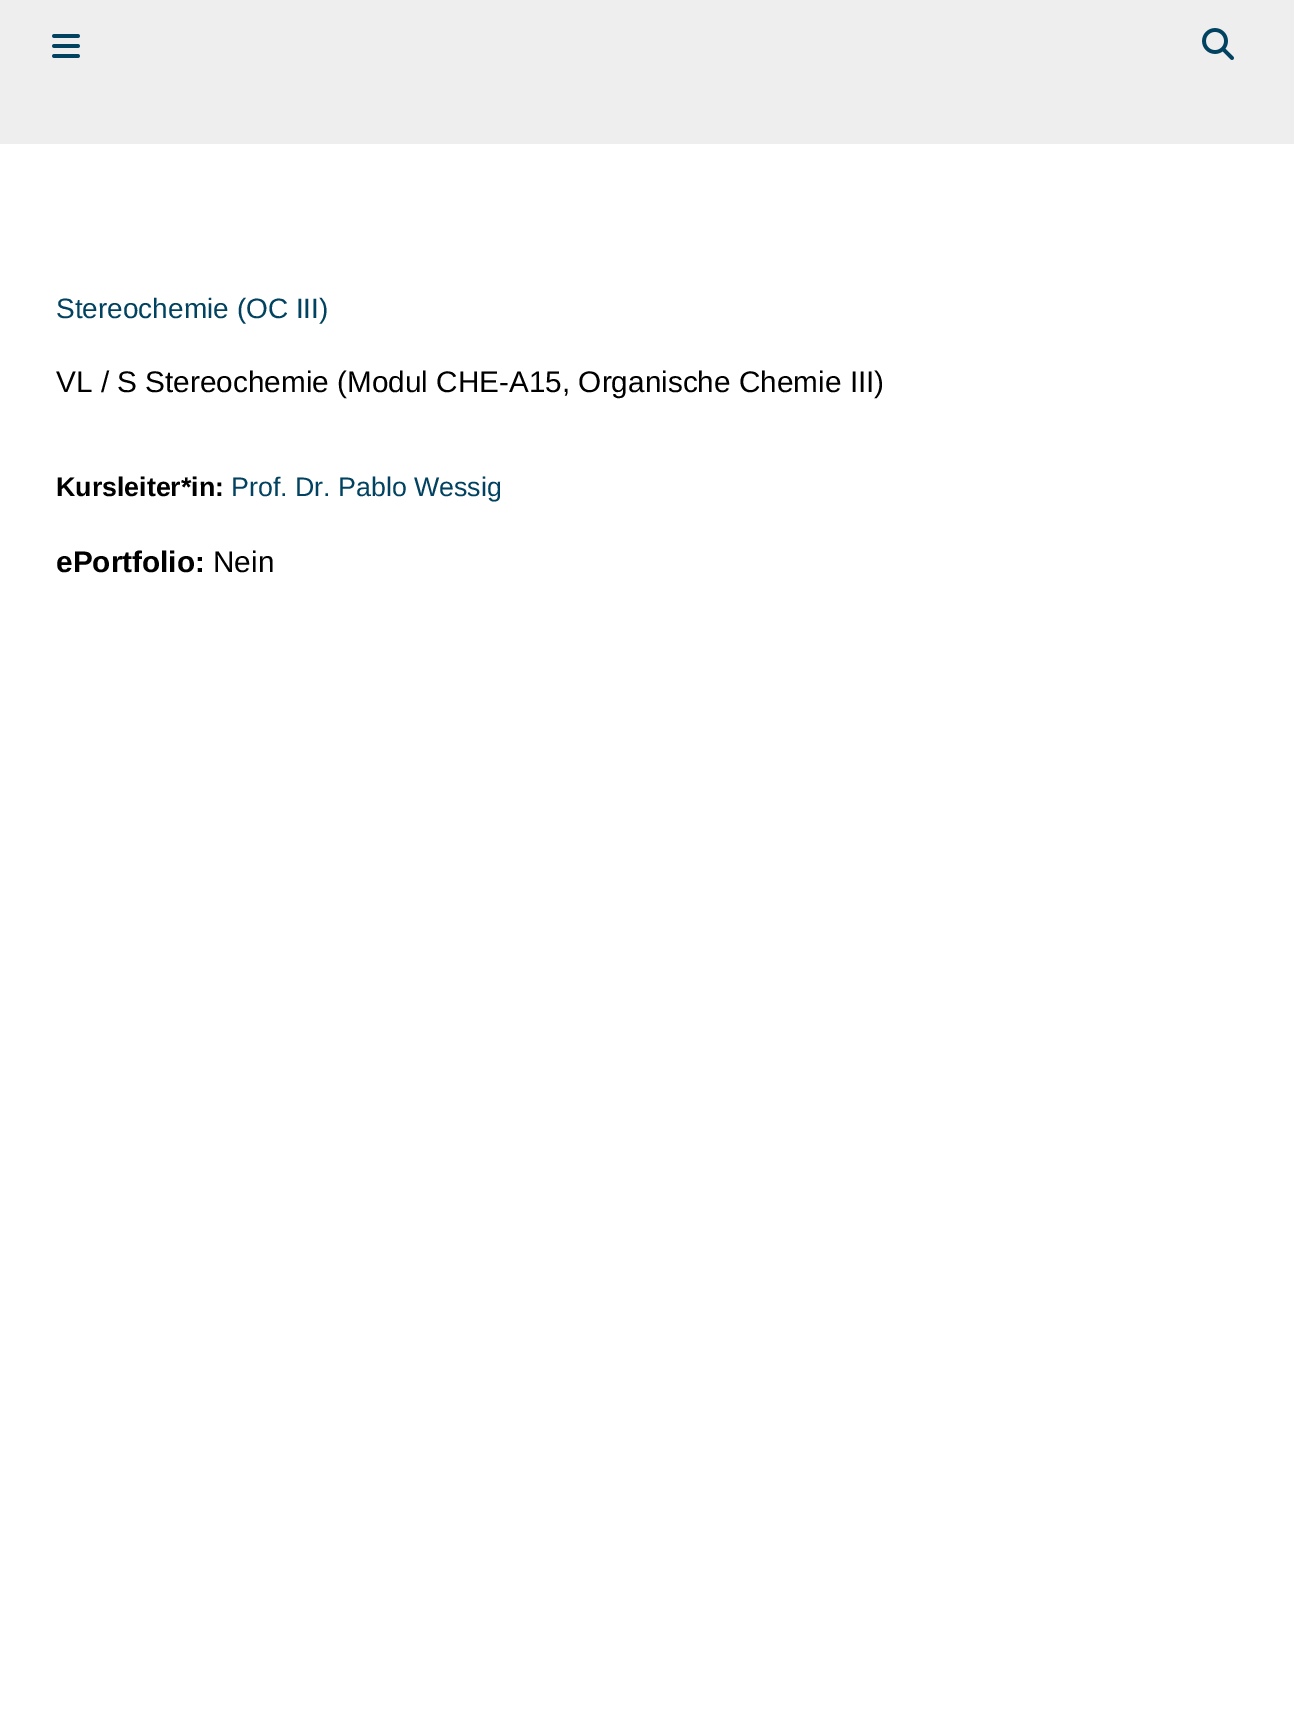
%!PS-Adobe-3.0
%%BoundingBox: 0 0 1294 1714
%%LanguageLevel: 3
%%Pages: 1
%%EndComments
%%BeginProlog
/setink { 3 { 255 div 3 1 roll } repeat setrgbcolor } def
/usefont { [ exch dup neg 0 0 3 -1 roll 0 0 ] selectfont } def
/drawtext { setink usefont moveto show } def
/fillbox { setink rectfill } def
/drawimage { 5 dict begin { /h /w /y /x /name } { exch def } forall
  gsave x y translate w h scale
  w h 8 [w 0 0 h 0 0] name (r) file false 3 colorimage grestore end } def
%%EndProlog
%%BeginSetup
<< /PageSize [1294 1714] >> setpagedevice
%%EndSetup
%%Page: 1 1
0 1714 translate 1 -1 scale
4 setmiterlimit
0 0 1294 1714 255 255 255 fillbox
0 0 1294 144 238 238 238 fillbox
(assets/img1.rgb) 52 34 28 24 drawimage
(assets/img2.rgb) 1202 28 32 32 drawimage
(Stereochemie \(OC III\)) 56 318 /LiberationSans-Regular 28 0 66 96 drawtext
(VL / S Stereochemie \(Modul CHE-A15, Organische Chemie III\)) 56 392 /LiberationSans-Regular 29.75 0 0 0 drawtext
(Kursleiter*in:) 56 496 /LiberationSans-Bold 26.75 0 0 0 drawtext
(Prof. Dr. Pablo Wessig) 231 496 /LiberationSans-Regular 26.75 0 66 96 drawtext
(ePortfolio:) 56 572 /LiberationSans-Bold 29.75 0 0 0 drawtext
(Nein) 213 572 /LiberationSans-Regular 29.75 0 0 0 drawtext
showpage
%%EOF
